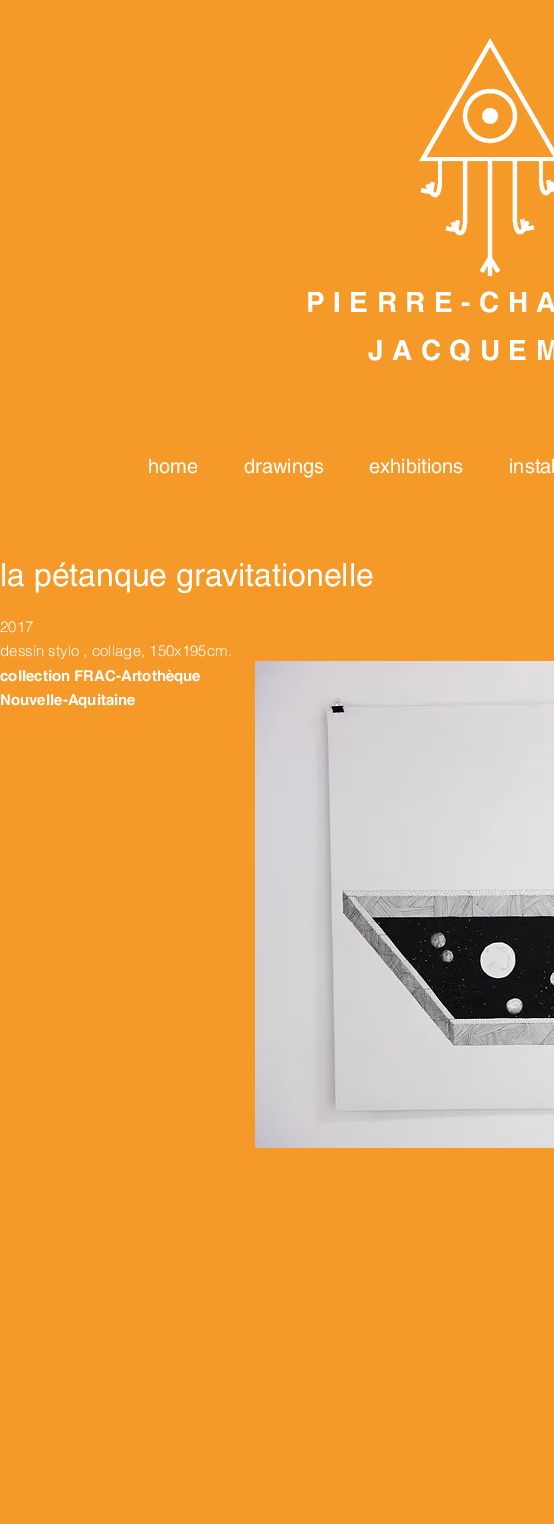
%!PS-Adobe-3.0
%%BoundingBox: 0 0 554 1524
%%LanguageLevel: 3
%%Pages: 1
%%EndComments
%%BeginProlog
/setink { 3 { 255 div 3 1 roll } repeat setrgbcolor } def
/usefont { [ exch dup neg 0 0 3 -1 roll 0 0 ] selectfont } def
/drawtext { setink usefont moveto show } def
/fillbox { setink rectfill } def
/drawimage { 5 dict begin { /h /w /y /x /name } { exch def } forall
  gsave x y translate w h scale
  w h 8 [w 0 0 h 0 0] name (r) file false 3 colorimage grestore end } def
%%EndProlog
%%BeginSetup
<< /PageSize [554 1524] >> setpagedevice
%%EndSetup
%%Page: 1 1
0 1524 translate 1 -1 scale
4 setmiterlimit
0 0 554 1524 245 154 40 fillbox
(assets/img1.rgb) 419 38 135 239 drawimage
/helvetica-Bold 28 usefont
255 255 255 setink
306 312 moveto 8.5 0 (PIERRE-CHA) ashow
368 360 moveto 8.5 0 (JACQUEM) ashow
(home) 148 473 /helvetica-Regular 20 255 255 255 drawtext
(drawings) 244 473 /helvetica-Regular 20 255 255 255 drawtext
(exhibitions) 369 473 /helvetica-Regular 20 255 255 255 drawtext
(instal) 509 473 /helvetica-Regular 20 255 255 255 drawtext
(la pétanque gravitationelle) 0 586 /helvetica-Regular 32 255 255 255 drawtext
(2017) 0 632 /helvetica-Light 15 255 255 255 drawtext
(dessin stylo , collage, 150x195cm.) 0 656 /helvetica-Light 15 255 255 255 drawtext
(collection FRAC-Artothèque) 0 681 /helvetica-Bold 15 255 255 255 drawtext
(Nouvelle-Aquitaine) 0 705 /helvetica-Bold 15 255 255 255 drawtext
(assets/img2.rgb) 255 661 299 487 drawimage
showpage
%%EOF
